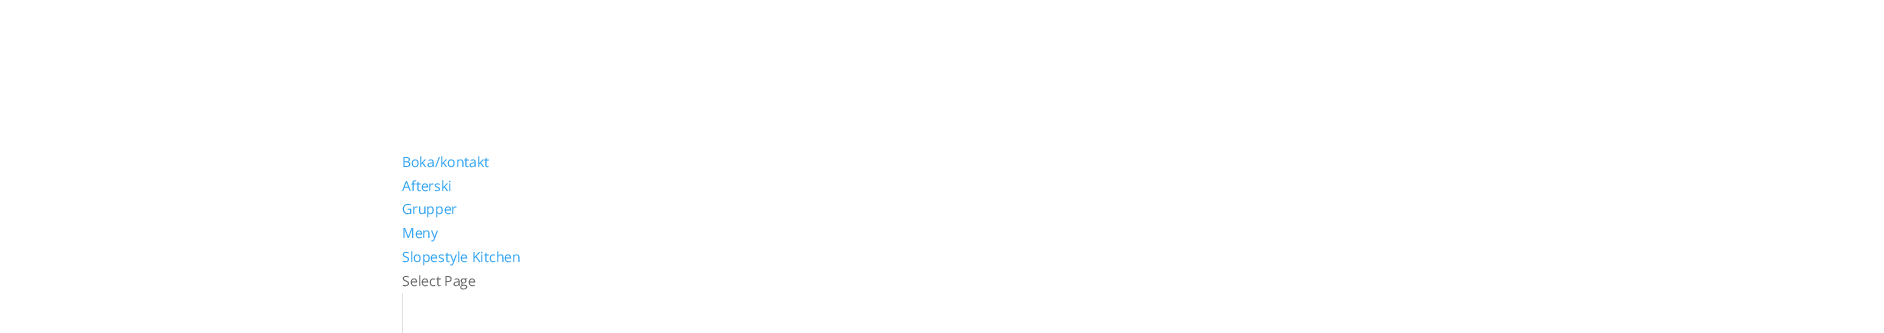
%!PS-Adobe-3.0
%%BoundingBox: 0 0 1884 333
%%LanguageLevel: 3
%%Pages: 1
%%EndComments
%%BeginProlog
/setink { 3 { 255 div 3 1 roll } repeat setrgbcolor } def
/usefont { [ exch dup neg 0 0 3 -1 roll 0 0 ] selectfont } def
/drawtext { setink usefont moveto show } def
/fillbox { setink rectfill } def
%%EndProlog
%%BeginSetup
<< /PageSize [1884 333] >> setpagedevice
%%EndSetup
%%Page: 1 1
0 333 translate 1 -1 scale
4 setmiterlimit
0 0 1884 333 255 255 255 fillbox
(Boka/kontakt) 402 167 /OpenSans-Regular 14 46 163 242 drawtext
(Afterski) 402 191 /OpenSans-Regular 14 46 163 242 drawtext
(Grupper) 402 214 /OpenSans-Regular 14 46 163 242 drawtext
(Meny) 402 238 /OpenSans-Regular 14 46 163 242 drawtext
(Slopestyle Kitchen) 402 262 /OpenSans-Regular 14 46 163 242 drawtext
(Select Page) 402 286 /OpenSans-Regular 14 102 102 102 drawtext
402 293 1 40 226 226 226 fillbox
showpage
%%EOF
